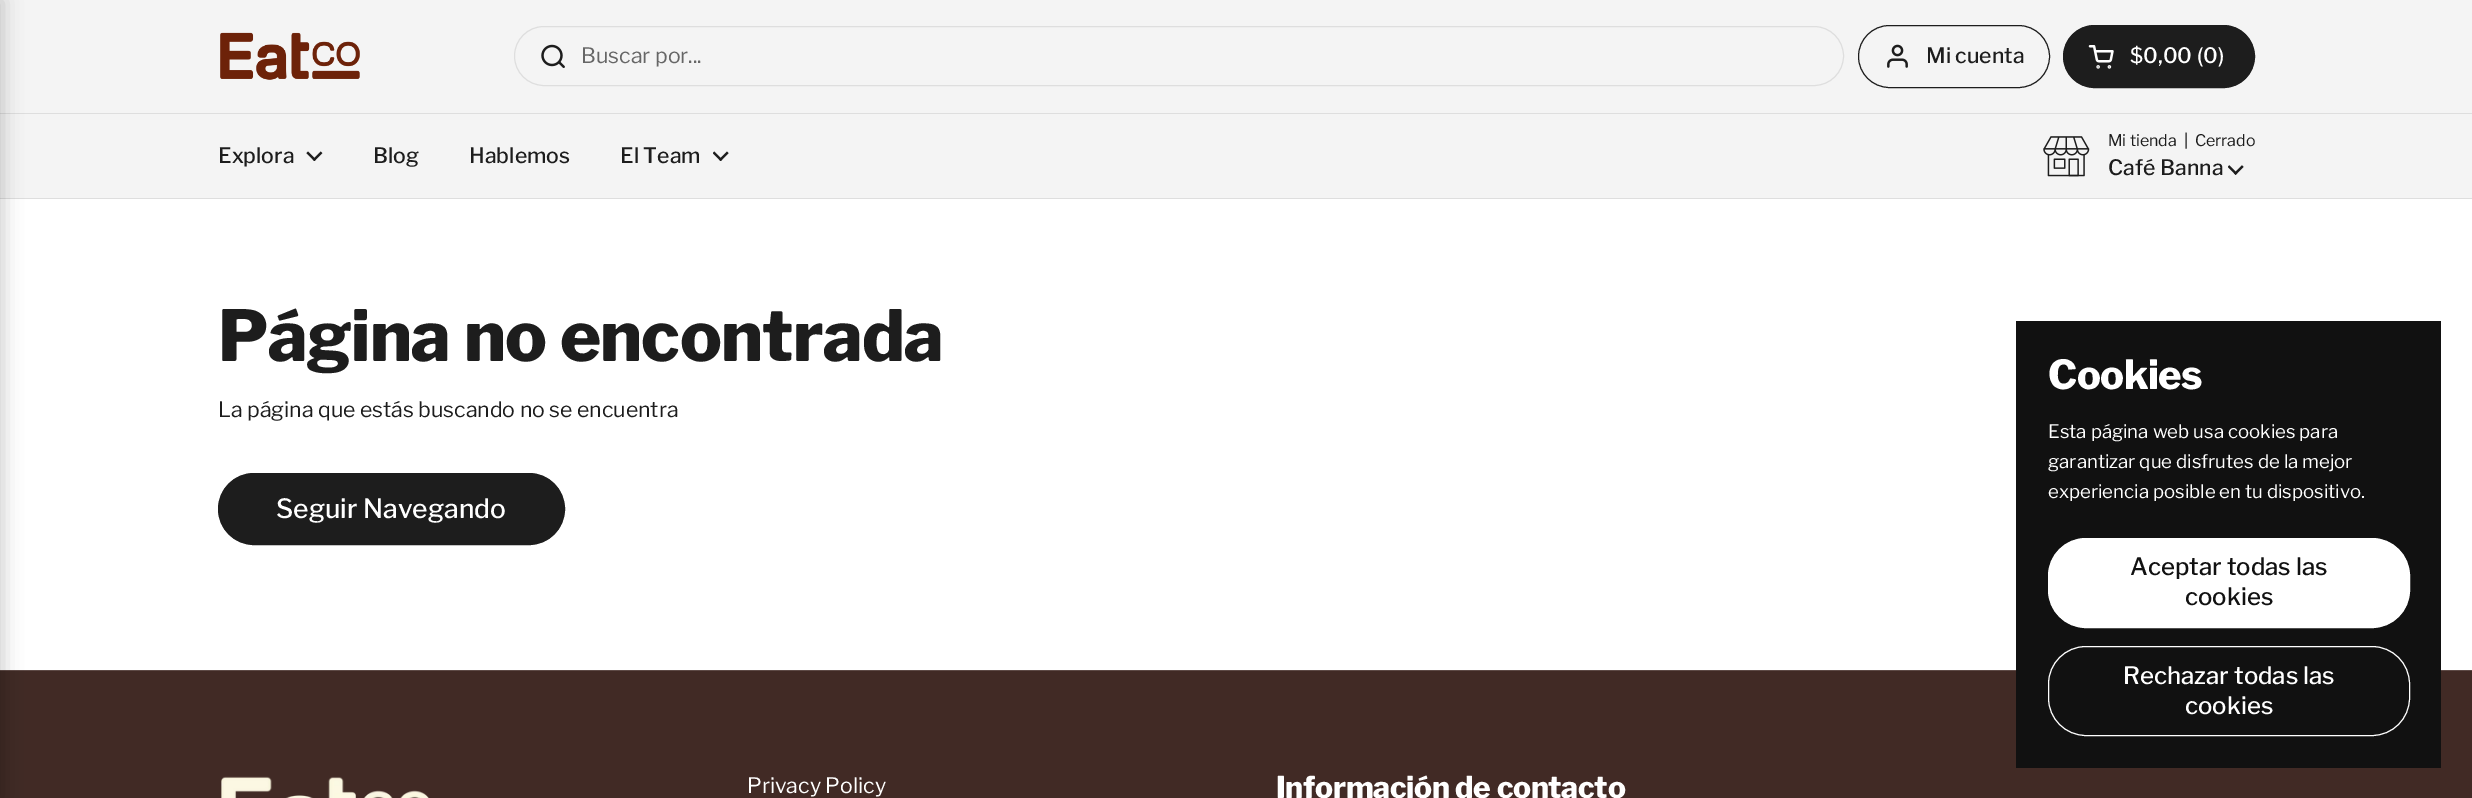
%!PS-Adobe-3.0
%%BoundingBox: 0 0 2472 798
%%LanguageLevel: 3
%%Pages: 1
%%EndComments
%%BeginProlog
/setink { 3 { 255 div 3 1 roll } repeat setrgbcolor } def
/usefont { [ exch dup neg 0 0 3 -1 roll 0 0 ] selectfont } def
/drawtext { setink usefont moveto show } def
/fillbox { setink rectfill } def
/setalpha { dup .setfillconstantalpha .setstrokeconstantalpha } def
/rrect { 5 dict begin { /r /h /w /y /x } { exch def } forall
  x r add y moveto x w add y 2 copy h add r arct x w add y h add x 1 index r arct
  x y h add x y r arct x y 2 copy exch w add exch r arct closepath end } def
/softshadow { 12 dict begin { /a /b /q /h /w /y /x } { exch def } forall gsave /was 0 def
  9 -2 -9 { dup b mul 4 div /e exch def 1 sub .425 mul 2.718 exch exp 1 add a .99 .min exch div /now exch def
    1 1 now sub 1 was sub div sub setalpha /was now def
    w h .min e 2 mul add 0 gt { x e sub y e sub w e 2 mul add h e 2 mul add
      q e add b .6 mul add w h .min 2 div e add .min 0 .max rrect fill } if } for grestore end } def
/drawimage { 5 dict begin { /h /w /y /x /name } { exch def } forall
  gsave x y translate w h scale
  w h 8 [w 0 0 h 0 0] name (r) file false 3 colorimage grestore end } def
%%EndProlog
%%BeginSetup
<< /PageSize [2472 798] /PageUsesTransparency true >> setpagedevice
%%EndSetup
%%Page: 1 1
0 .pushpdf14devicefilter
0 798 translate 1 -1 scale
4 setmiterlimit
0 0 2472 798 255 255 255 fillbox
0 0 2472 198 244 244 244 fillbox
0 113 2472 1 222 222 222 fillbox
0 198 2472 1 222 222 222 fillbox
0 671 2472 127 65 42 37 fillbox
0 670 2472 1 94 74 70 fillbox
0 0 0 setink
-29 0 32 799 0 9.5 0.2 softshadow
(assets/img1.rgb) 220 32 140 48 drawimage
222 222 222 setink
514.5 26.5 1329 59 29.5 rrect stroke
(assets/img2.rgb) 541 44 24 24 drawimage
(Buscar por...) 581 63 /LibreFranklin-Regular 21.25 102 102 102 drawtext
29 29 29 setink
1858.5 25.5 191 62 31 rrect stroke
(assets/img3.rgb) 1887 44 21 24 drawimage
(Mi cuenta) 1926 63 /LibreFranklin-Medium 21.25 29 29 29 drawtext
2063.5 25.5 191 62 31 rrect gsave fill grestore
stroke
(assets/img4.rgb) 2088 45 26 24 drawimage
($0,00 \(0\)) 2130 63 /LibreFranklin-Medium 21.25 255 255 255 drawtext
(Explora) 218 163 /LibreFranklin-Medium 21.25 29 29 29 drawtext
(assets/img5.rgb) 306 151 17 10 drawimage
(Blog) 373 163 /LibreFranklin-Medium 21.25 29 29 29 drawtext
(Hablemos) 469 163 /LibreFranklin-Medium 21.25 29 29 29 drawtext
(El Team) 620 163 /LibreFranklin-Medium 21.25 29 29 29 drawtext
(assets/img6.rgb) 713 151 16 10 drawimage
(assets/img7.rgb) 2043 136 47 41 drawimage
(Mi tienda  |  Cerrado) 2108 146 /LibreFranklin-Regular 16 29 29 29 drawtext
(Café Banna) 2108 175 /LibreFranklin-Medium 21.25 29 29 29 drawtext
(assets/img8.rgb) 2228 165 16 10 drawimage
/LibreFranklin-ExtraBold 70 usefont
218 361 moveto -0.7 0 (Página no encontrada) ashow
(La página que estás buscando no se encuentra) 218 417 /LibreFranklin-Regular 21.25 29 29 29 drawtext
218.5 473.5 346 71 35.5 rrect gsave fill grestore
stroke
(Seguir Navegando) 276 518 /LibreFranklin-Medium 26.5 255 255 255 drawtext
2016 321 425 447 17 17 17 fillbox
/LibreFranklin-ExtraBold 40 usefont
255 255 255 setink
2048 389 moveto -0.5 0 (Cookies) ashow
(Esta página web usa cookies para) 2048 438 /LibreFranklin-Regular 18.6 255 255 255 drawtext
(garantizar que disfrutes de la mejor) 2048 468 /LibreFranklin-Regular 18.6 255 255 255 drawtext
(experiencia posible en tu dispositivo.) 2048 498 /LibreFranklin-Regular 18.6 255 255 255 drawtext
2048.5 538.5 361 89 37.5 rrect gsave fill grestore
stroke
(Aceptar todas las) 2130 575 /LibreFranklin-Medium 24 17 17 17 drawtext
(cookies) 2185 605 /LibreFranklin-Medium 24 17 17 17 drawtext
255 255 255 setink
2048.5 646.5 361 89 37.5 rrect stroke
(Rechazar todas las) 2123 684 /LibreFranklin-Medium 24 255 255 255 drawtext
(cookies) 2185 714 /LibreFranklin-Medium 24 255 255 255 drawtext
(assets/img9.rgb) 221 776 208 22 drawimage
(Privacy Policy) 747 793 /LibreFranklin-Regular 21.25 255 255 255 drawtext
/LibreFranklin-ExtraBold 30 usefont
1276 798 moveto -0.3 0 (Información de contacto) ashow
.poppdf14devicefilter showpage
%%EOF
